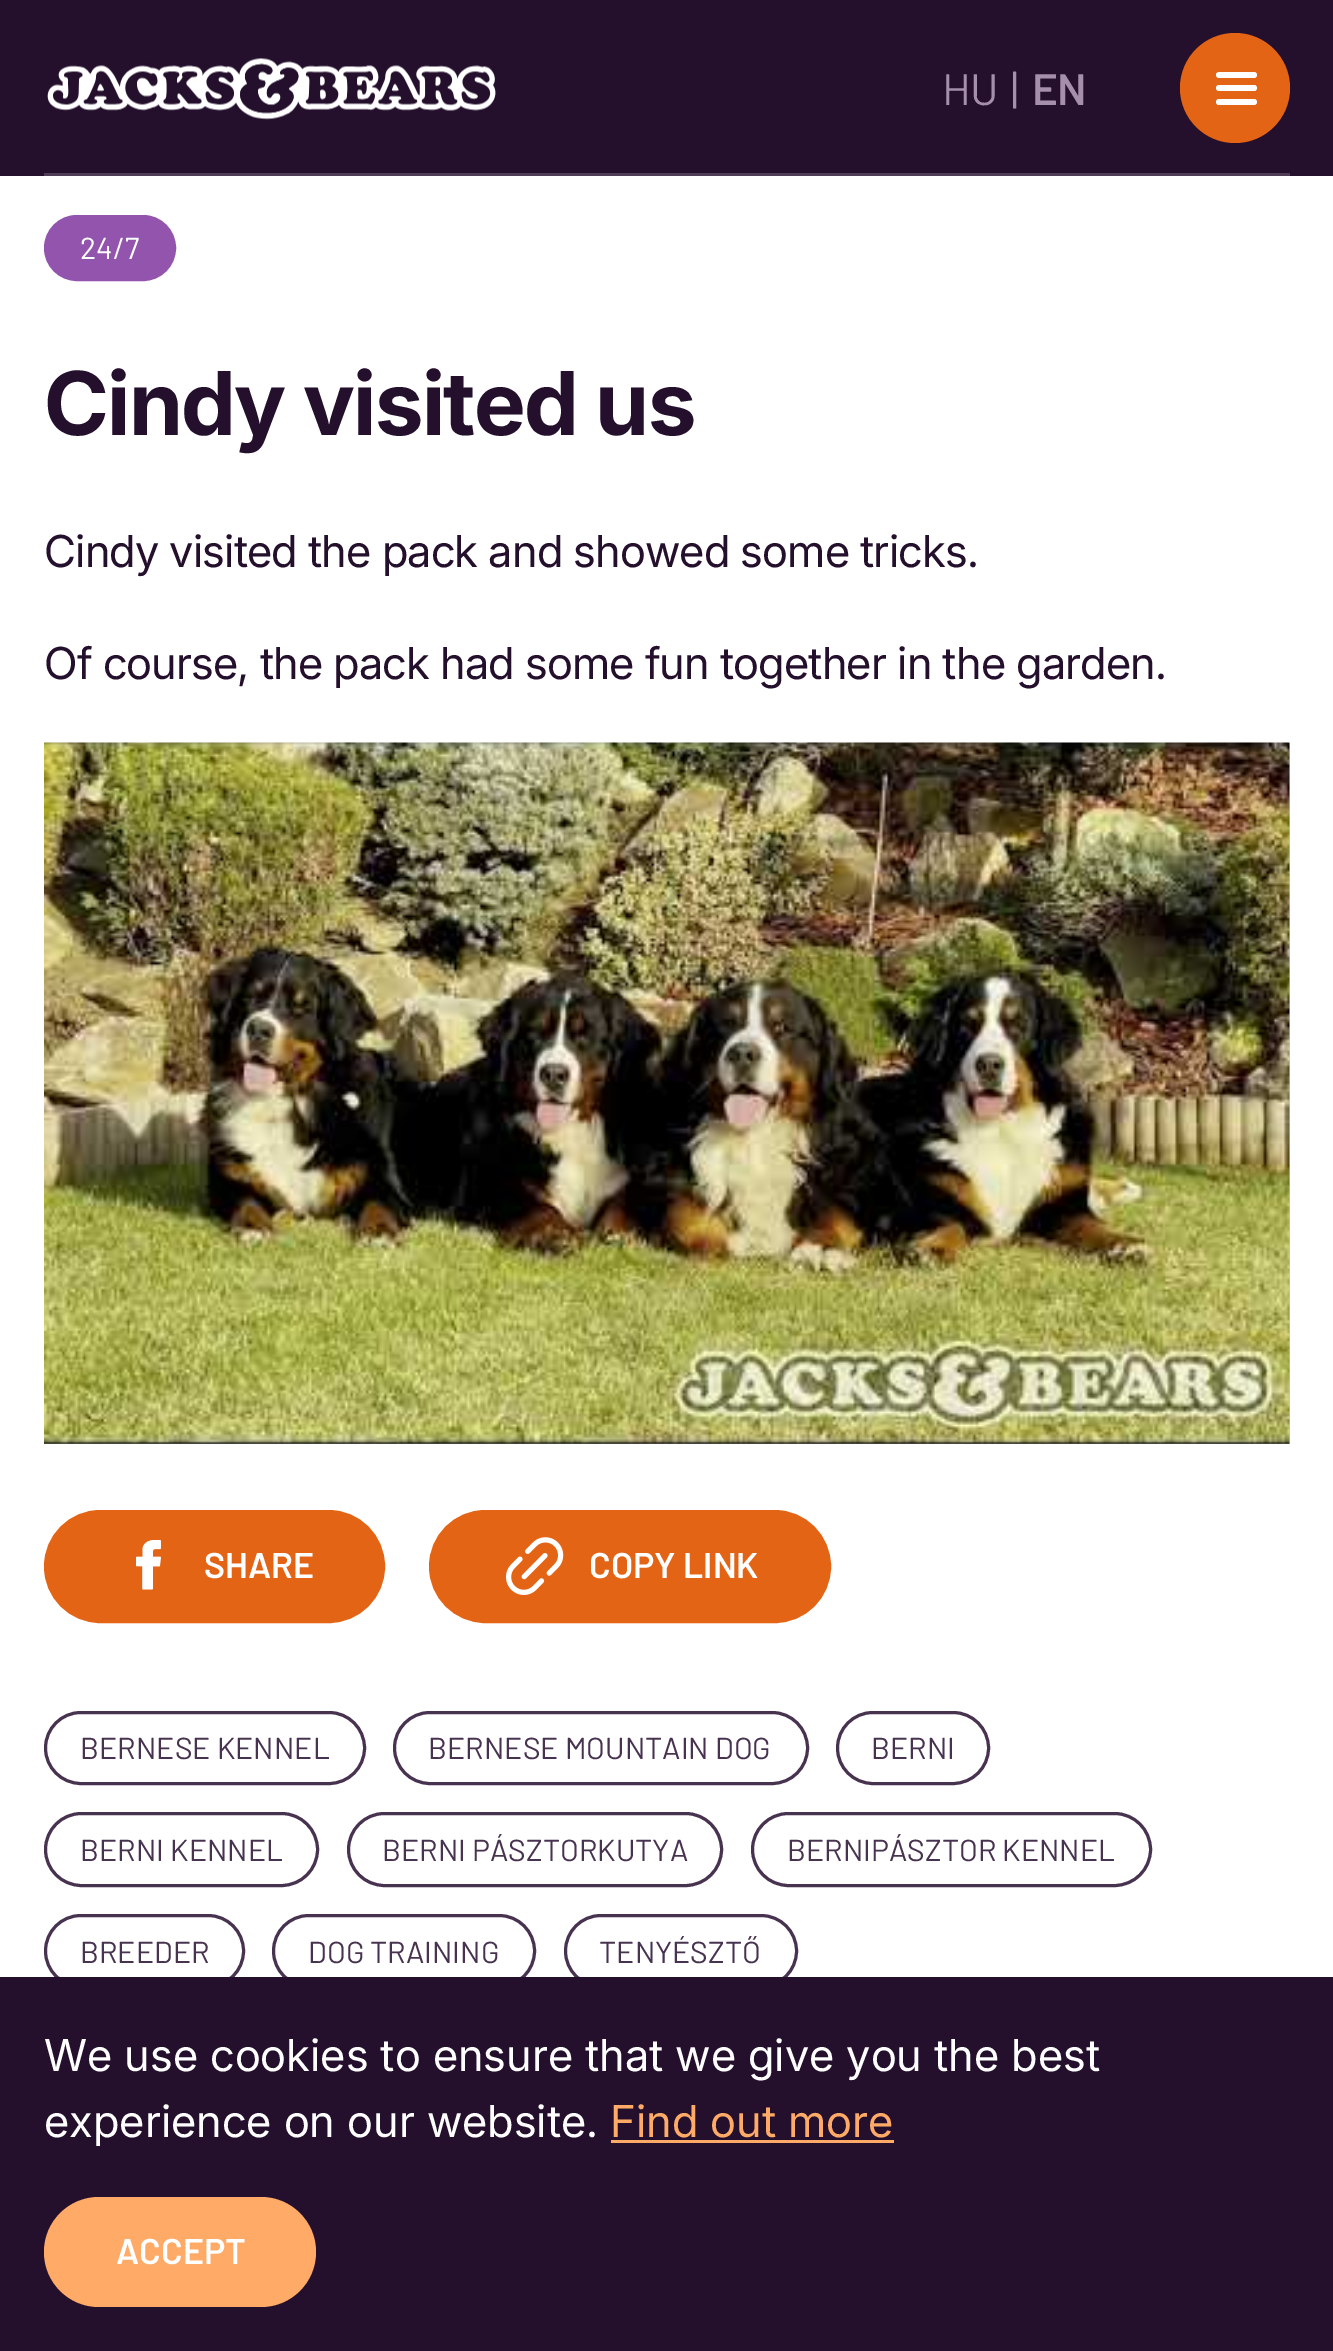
%!PS-Adobe-3.0
%%BoundingBox: 0 0 1333 2351
%%LanguageLevel: 3
%%Pages: 1
%%EndComments
%%BeginProlog
/setink { 3 { 255 div 3 1 roll } repeat setrgbcolor } def
/usefont { [ exch dup neg 0 0 3 -1 roll 0 0 ] selectfont } def
/drawtext { setink usefont moveto show } def
/fillbox { setink rectfill } def
/disc { newpath 0 360 arc closepath } def
/rrect { 5 dict begin { /r /h /w /y /x } { exch def } forall
  x r add y moveto x w add y 2 copy h add r arct x w add y h add x 1 index r arct
  x y h add x y r arct x y 2 copy exch w add exch r arct closepath end } def
/drawimage { 5 dict begin { /h /w /y /x /name } { exch def } forall
  gsave x y translate w h scale
  w h 8 [w 0 0 h 0 0] name (r) file false 3 colorimage grestore end } def
%%EndProlog
%%BeginSetup
<< /PageSize [1333 2351] >> setpagedevice
%%EndSetup
%%Page: 1 1
0 2351 translate 1 -1 scale
4 setmiterlimit
0 0 1333 2351 255 255 255 fillbox
0 0 1333 176 36 16 44 fillbox
(assets/img1.rgb) 47 58 449 62 drawimage
/Barlow-Regular 44 usefont
165 143 173 setink
942 105 moveto -0.88 0 (HU) ashow
1011 105 moveto -0.88 0 (|) ashow
/Barlow-SemiBold 44 usefont
1032 105 moveto -0.88 0 (EN) ashow
227 100 20 setink
1235 88 55 disc fill
255 255 255 setink
1216 72 41 6 3 rrect fill
1216 85 41 6 3 rrect fill
1216 99 41 6 3 rrect fill
44 173 1246 3 78 61 84 fillbox
147 84 173 setink
45.5 216.5 129 63 31.5 rrect gsave fill grestore
3 setlinewidth
stroke
(24/7) 80 259 /Barlow-Regular 30.25 255 255 255 drawtext
/Inter-Bold 88 usefont
36 16 44 setink
44 435 moveto -1.75 0 (Cindy visited us) ashow
/Inter-Regular 44 usefont
44 567 moveto -0.88 0 (Cindy visited the pack and showed some tricks.) ashow
44 679 moveto -0.88 0 (Of course, the pack had some fun together in the garden.) ashow
44 743 1246 701 198 198 198 fillbox
(assets/img2.rgb) 44 742 1246 702 drawimage
227 100 20 setink
47 1513 335 107 53.5 rrect gsave fill grestore
6 setlinewidth
stroke
(assets/img3.rgb) 136 1540 25 50 drawimage
(SHARE) 204 1578 /Barlow-SemiBold 35.75 255 255 255 drawtext
227 100 20 setink
432 1513 396 107 53.5 rrect gsave fill grestore
stroke
(assets/img4.rgb) 506 1537 58 58 drawimage
(COPY LINK) 589 1578 /Barlow-SemiBold 35.75 255 255 255 drawtext
71 50 79 setink
3 setlinewidth
45.5 1712.5 319 71 35.5 rrect stroke
(BERNESE KENNEL) 80 1759 /Barlow-Regular 30.25 71 50 79 drawtext
394.5 1712.5 413 71 35.5 rrect stroke
(BERNESE MOUNTAIN DOG) 428 1759 /Barlow-Regular 30.25 71 50 79 drawtext
837.5 1712.5 151 71 35.5 rrect stroke
(BERNI) 871 1759 /Barlow-Regular 30.25 71 50 79 drawtext
45.5 1813.5 272 72 36 rrect stroke
(BERNI KENNEL) 80 1861 /Barlow-Regular 30.25 71 50 79 drawtext
348.5 1813.5 373 72 36 rrect stroke
(BERNI PÁSZTORKUTYA) 382 1861 /Barlow-Regular 30.25 71 50 79 drawtext
752.5 1813.5 398 72 36 rrect stroke
(BERNIPÁSZTOR KENNEL) 787 1861 /Barlow-Regular 30.25 71 50 79 drawtext
45.5 1915.5 198 71 35.5 rrect stroke
(BREEDER) 80 1963 /Barlow-Regular 30.25 71 50 79 drawtext
273.5 1915.5 261 71 35.5 rrect stroke
(DOG TRAINING) 308 1963 /Barlow-Regular 30.25 71 50 79 drawtext
565.5 1915.5 231 71 35.5 rrect stroke
(TENYÉSZTŐ) 599 1963 /Barlow-Regular 30.25 71 50 79 drawtext
0 1977 1333 374 36 16 44 fillbox
(We use cookies to ensure that we give you the best) 44 2071 /Inter-Regular 44 255 255 255 drawtext
(experience on our website.) 44 2137 /Inter-Regular 44 255 255 255 drawtext
(Find out more) 610 2137 /Inter-Regular 44 255 170 102 drawtext
611 2140 283 3 255 170 102 fillbox
44 2197 272 110 55 rrect fill
(ACCEPT) 116 2264 /Barlow-SemiBold 35.75 255 255 255 drawtext
showpage
%%EOF
